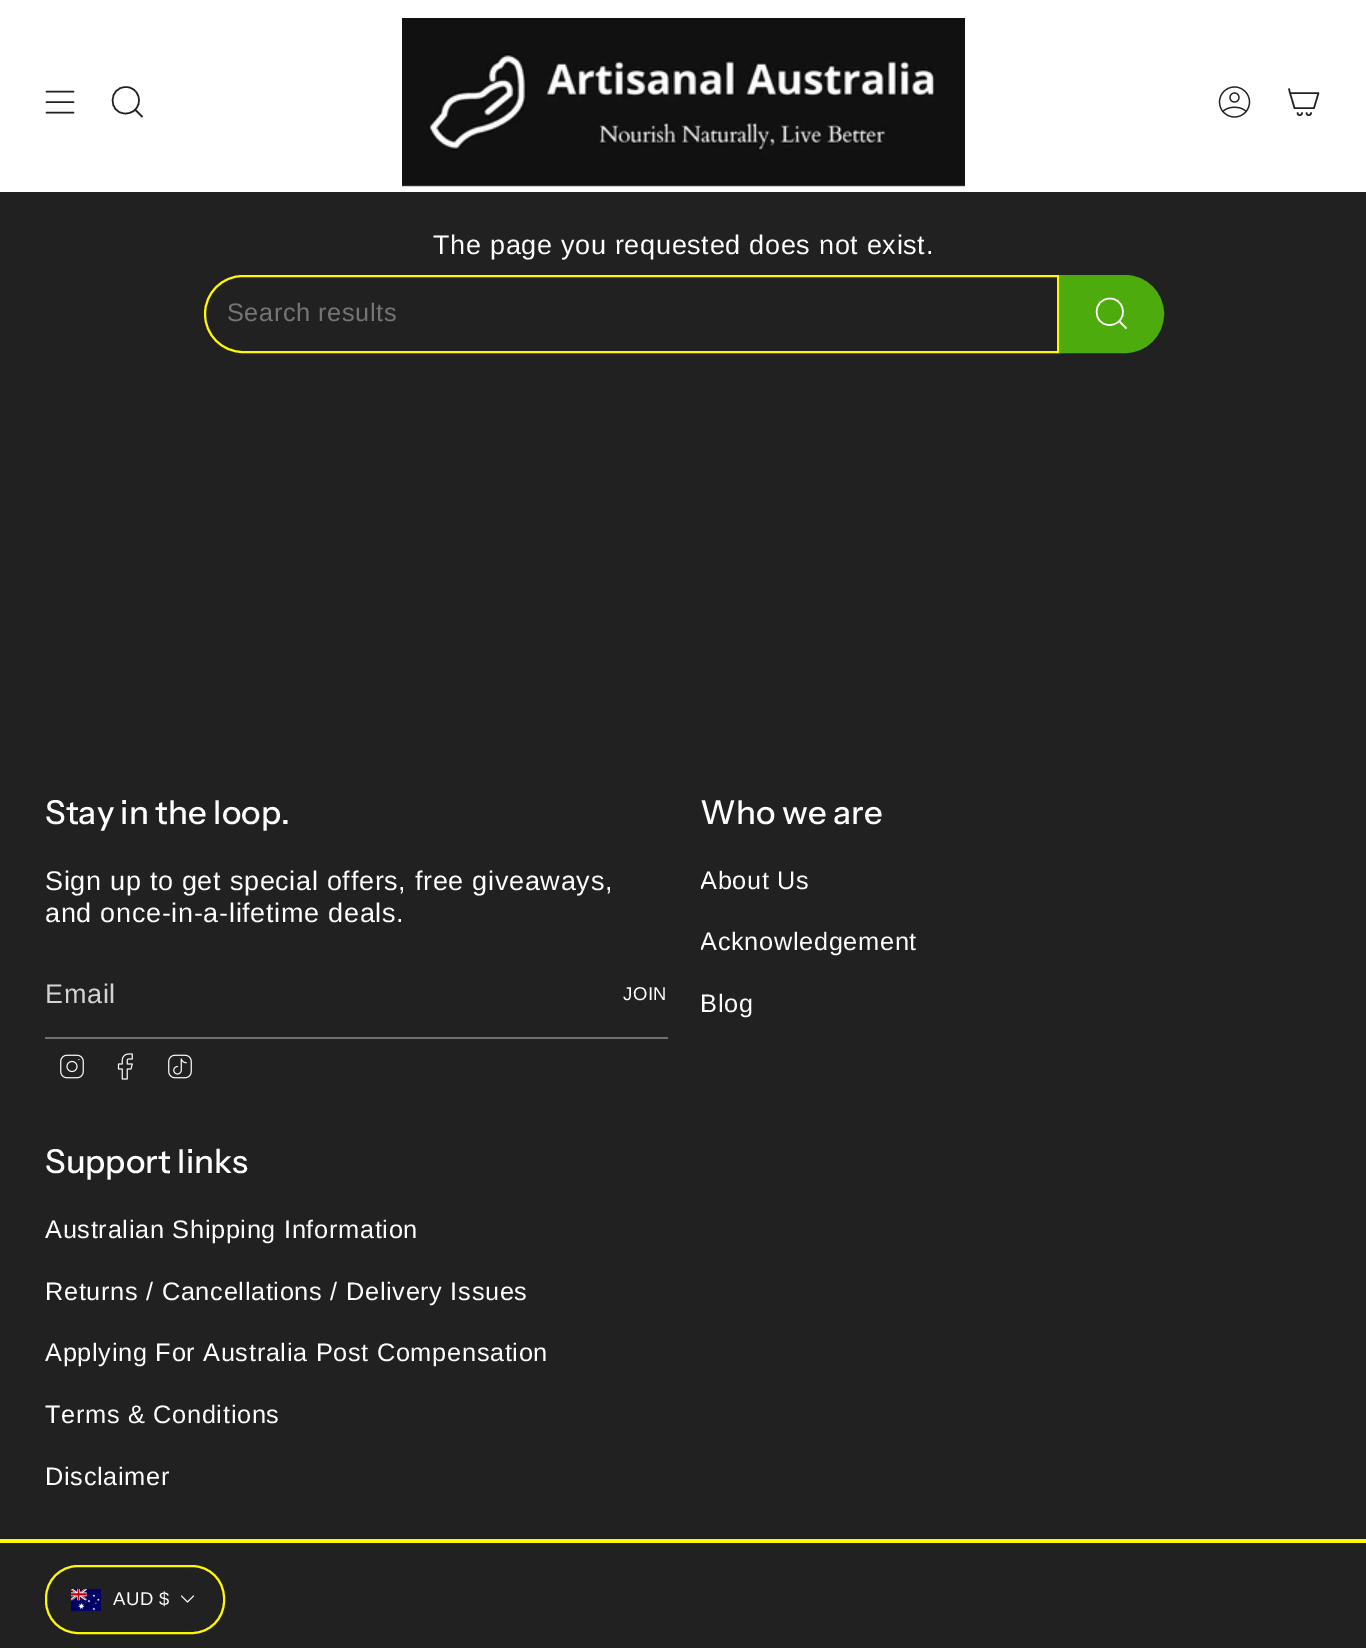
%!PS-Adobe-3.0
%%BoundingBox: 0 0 1366 1648
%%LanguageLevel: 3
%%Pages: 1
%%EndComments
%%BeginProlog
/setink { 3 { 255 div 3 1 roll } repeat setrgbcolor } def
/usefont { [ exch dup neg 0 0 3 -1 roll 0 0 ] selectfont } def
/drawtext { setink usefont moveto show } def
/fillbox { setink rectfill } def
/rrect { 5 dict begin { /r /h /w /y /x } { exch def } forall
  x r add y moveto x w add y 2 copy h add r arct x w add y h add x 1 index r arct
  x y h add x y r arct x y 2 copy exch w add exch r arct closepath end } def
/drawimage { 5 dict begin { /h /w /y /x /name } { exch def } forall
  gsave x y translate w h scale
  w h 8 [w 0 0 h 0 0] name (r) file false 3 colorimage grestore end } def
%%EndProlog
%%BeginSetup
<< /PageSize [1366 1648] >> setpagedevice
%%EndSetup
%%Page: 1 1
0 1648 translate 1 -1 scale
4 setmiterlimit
0 0 1366 1648 33 33 33 fillbox
0 0 1366 192 255 255 255 fillbox
33 33 33 setink
1.5 setlinewidth
1 setlinecap
1 setlinejoin
46.5 91.5 moveto 73.5 91.5 lineto 46.5 102 moveto 73.5 102 lineto 46.5 112.5 moveto 73.5 112.5 lineto stroke
0 setlinecap
0 setlinejoin
126 87 moveto 138.5 87 144 103.5 133.5 111 curveto 131 113 128 113.5 125 113.5 curveto 108 113 108.5 87 126 87 curveto closepath 135 109.5 moveto 142.5 117 lineto stroke
(assets/img1.rgb) 402 18 563 169 drawimage
(assets/img2.rgb) 1218 86 33 32 drawimage
1 setlinecap
1 setlinejoin
1290 93 moveto 1318.5 93 lineto 1314 108 lineto 1294.5 108 lineto closepath 1290 93 moveto 1289 89 lineto 1302 113 moveto 1302 116 1297.5 116 1297.5 113 curveto 1311 113 moveto 1311 116 1306.5 116 1306.5 113 curveto stroke
/LiberationSans-Regular 27 usefont
255 255 255 setink
433 254 moveto 0.7 0 (The page you requested does not exist.) ashow
254 249 0 setink
2 setlinewidth
0 setlinecap
0 setlinejoin
243 276 moveto 1058 276 lineto 1058 352 lineto 243 352 lineto 222 352 205 335 205 314 curveto 205 293 222 276 243 276 curveto closepath stroke
/LiberationSans-Regular 25.3 usefont
117 117 117 setink
227 321 moveto 0.6 0 (Search results) ashow
78 171 13 setink
1060 276 moveto 1125 276 lineto 1146 276 1163 293 1163 314 curveto 1163 335 1146 352 1125 352 curveto 1060 352 lineto closepath gsave fill grestore
stroke
255 255 255 setink
1.5 setlinewidth
1110 298.5 moveto 1122.5 298.5 1128 315 1117.5 322.5 curveto 1115 324.5 1112 325 1109 325 curveto 1092 324.5 1092.5 298.5 1110 298.5 curveto closepath 1119 321 moveto 1126.5 328.5 lineto stroke
(Stay in the loop.) 45 824 /InstrumentSans-Medium 33 255 255 255 drawtext
/LiberationSans-Regular 27 usefont
45 890 moveto 0.7 0 (Sign up to get special offers, free giveaways,) ashow
45 922 moveto 0.7 0 (and once-in-a-lifetime deals.) ashow
45 1037 623 2 111 111 111 fillbox
211 211 211 setink
45 1003 moveto 0.7 0 (Email) ashow
/LiberationSans-Regular 18.5 usefont
255 255 255 setink
623 1000 moveto 0.5 0 (JOIN) ashow
(assets/img3.rgb) 60 1054 24 25 drawimage
(assets/img4.rgb) 117 1053 16 27 drawimage
(assets/img5.rgb) 168 1054 24 25 drawimage
(Who we are) 700 824 /InstrumentSans-Medium 33 255 255 255 drawtext
gsave
701 866 621 157 rectclip
/LiberationSans-Regular 25.3 usefont
700 889 moveto 0.7 0 (About Us) ashow
700 950 moveto 0.7 0 (Acknowledgement) ashow
grestore
/LiberationSans-Regular 25.3 usefont
700 1012 moveto 0.7 0 (Blog) ashow
(Support links) 45 1173 /InstrumentSans-Medium 33 255 255 255 drawtext
/LiberationSans-Regular 25.3 usefont
45 1238 moveto 0.7 0 (Australian Shipping Information) ashow
45 1300 moveto 0.7 0 (Returns / Cancellations / Delivery Issues) ashow
45 1361 moveto 0.7 0 (Applying For Australia Post Compensation) ashow
45 1423 moveto 0.7 0 (Terms & Conditions) ashow
45 1485 moveto 0.7 0 (Disclaimer) ashow
0 1539 1366 4 254 249 0 fillbox
2 setlinewidth
46 1566 178 67 32 rrect stroke
(assets/img6.rgb) 71 1589 30 22 drawimage
/LiberationSans-Regular 18.5 usefont
255 255 255 setink
113 1605 moveto 0.5 0 (AUD $) ashow
1 setlinewidth
1 setlinecap
1 setlinejoin
181.5 1596 moveto 187.5 1602 lineto 193.5 1596 lineto stroke
showpage
%%EOF
